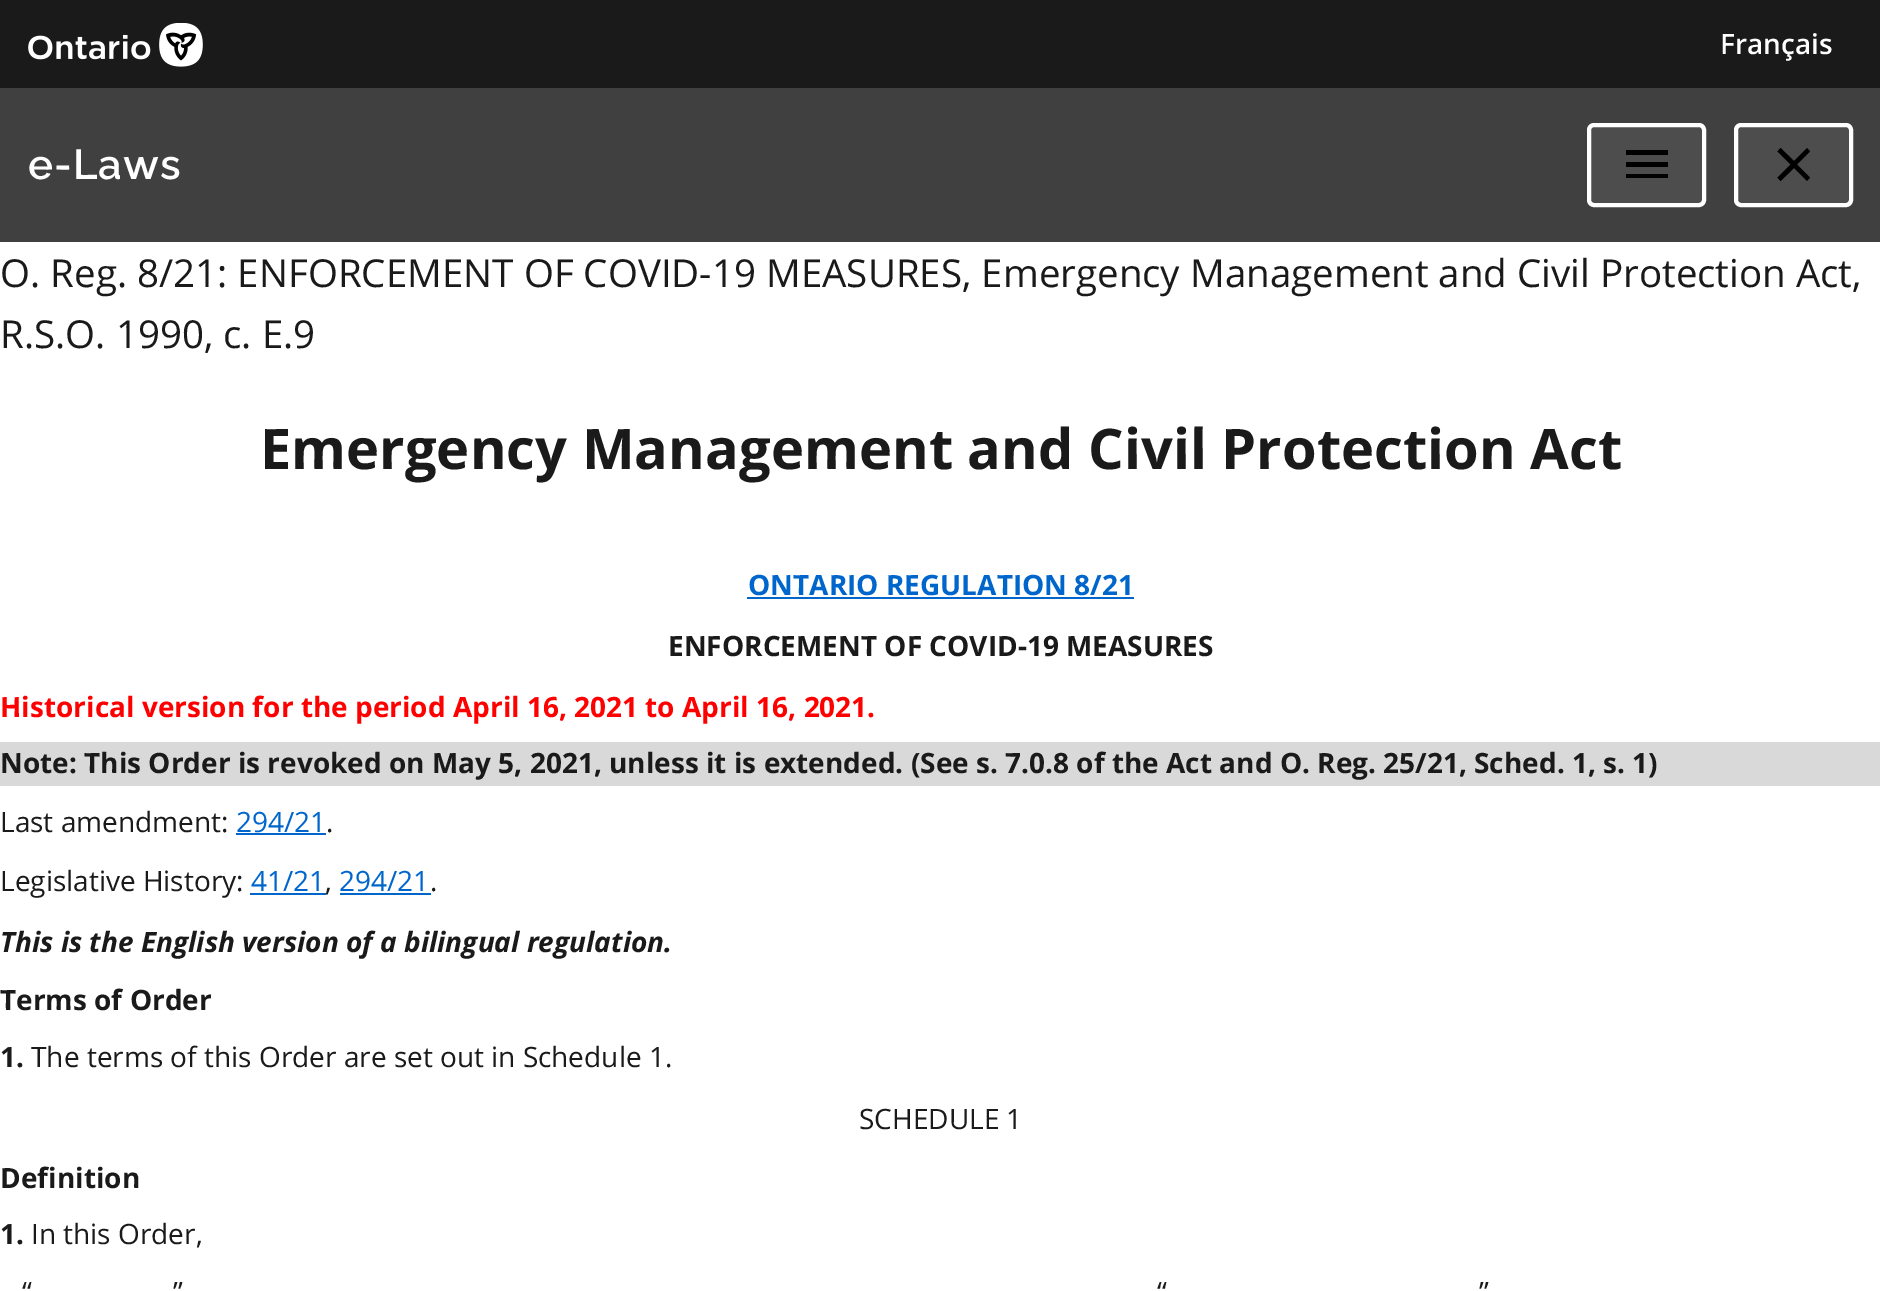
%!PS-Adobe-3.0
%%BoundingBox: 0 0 1880 1291
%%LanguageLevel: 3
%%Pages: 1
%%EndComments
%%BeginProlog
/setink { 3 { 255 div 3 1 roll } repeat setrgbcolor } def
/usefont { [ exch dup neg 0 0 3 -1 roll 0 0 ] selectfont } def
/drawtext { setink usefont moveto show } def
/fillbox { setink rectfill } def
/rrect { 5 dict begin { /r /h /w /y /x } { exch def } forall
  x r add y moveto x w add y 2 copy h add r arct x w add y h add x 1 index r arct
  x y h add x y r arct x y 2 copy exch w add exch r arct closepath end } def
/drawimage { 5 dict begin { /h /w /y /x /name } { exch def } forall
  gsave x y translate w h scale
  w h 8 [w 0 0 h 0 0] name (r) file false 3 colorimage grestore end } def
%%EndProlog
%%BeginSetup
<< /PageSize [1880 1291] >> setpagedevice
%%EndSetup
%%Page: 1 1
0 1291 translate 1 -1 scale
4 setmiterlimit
0 0 1880 1291 255 255 255 fillbox
0 0 1880 88 26 26 26 fillbox
(assets/img1.rgb) 28 23 175 44 drawimage
(Français) 1720 54 /OpenSans-SemiBold 28 255 255 255 drawtext
0 88 1880 154 64 64 64 fillbox
/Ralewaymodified-SemiBold 42 usefont
255 255 255 setink
28 179 moveto 1 0 (e-Laws) ashow
77 77 77 setink
1589 125 115 80 5 rrect gsave fill grestore
255 255 255 setink
4 setlinewidth
stroke
0 0 0 setink
1626 178 moveto 1668 178 lineto 1668 174 lineto 1626 174 lineto closepath 1626 167 moveto 1668 167 lineto 1668 162 lineto 1626 162 lineto closepath 1626 150 moveto 1626 155 lineto 1668 155 lineto 1668 150 lineto closepath fill
77 77 77 setink
1736 125 115 80 5 rrect gsave fill grestore
255 255 255 setink
stroke
0 0 0 setink
1810 151.5 moveto 1807 148 lineto 1794 161 lineto 1780.5 148 lineto 1777.5 151.5 lineto 1790.5 164.5 lineto 1777.5 177.5 lineto 1780.5 181 lineto 1794 168 lineto 1807 181 lineto 1810 177.5 lineto 1797 164.5 lineto closepath fill
(O. Reg. 8/21: ENFORCEMENT OF COVID-19 MEASURES, Emergency Management and Civil Protection Act,) 0 287 /OpenSans-Regular 38.5 26 26 26 drawtext
(R.S.O. 1990, c. E.9) 0 348 /OpenSans-Regular 38.5 26 26 26 drawtext
(Emergency Management and Civil Protection Act) 260 469 /OpenSans-Bold 56 26 26 26 drawtext
(ONTARIO REGULATION 8/21) 748 595 /OpenSans-Bold 28 0 102 204 drawtext
747 597 387 2 0 102 204 fillbox
(ENFORCEMENT OF COVID-19 MEASURES) 668 656 /OpenSans-Bold 28 26 26 26 drawtext
(Historical version for the period April 16, 2021 to April 16, 2021.) 0 717 /OpenSans-Bold 28 255 0 0 drawtext
0 742 1880 44 217 217 217 fillbox
(Note: This Order is revoked on May 5, 2021, unless it is extended. \(See s. 7.0.8 of the Act and O. Reg. 25/21, Sched. 1, s. 1\)) 0 773 /OpenSans-Bold 28 26 26 26 drawtext
(Last amendment:) 0 832 /OpenSans-Regular 28 26 26 26 drawtext
(294/21) 236 832 /OpenSans-Regular 28 0 102 204 drawtext
236 833 90 2 0 102 204 fillbox
(.) 326 832 /OpenSans-Regular 28 26 26 26 drawtext
(Legislative History:) 0 891 /OpenSans-Regular 28 26 26 26 drawtext
(41/21) 251 891 /OpenSans-Regular 28 0 102 204 drawtext
250 893 76 2 0 102 204 fillbox
(,) 325 891 /OpenSans-Regular 28 26 26 26 drawtext
(294/21) 339 891 /OpenSans-Regular 28 0 102 204 drawtext
340 893 91 2 0 102 204 fillbox
(.) 430 891 /OpenSans-Regular 28 26 26 26 drawtext
(This is the English version of a bilingual regulation.) 0 952 /OpenSans-BoldItalic 28 26 26 26 drawtext
(Terms of Order) 0 1010 /OpenSans-Bold 28 26 26 26 drawtext
(1.) 0 1067 /OpenSans-Bold 28 26 26 26 drawtext
(The terms of this Order are set out in Schedule 1.) 31 1067 /OpenSans-Regular 28 26 26 26 drawtext
(SCHEDULE 1) 859 1129 /OpenSans-Regular 28 26 26 26 drawtext
(Definition) 0 1188 /OpenSans-Bold 28 26 26 26 drawtext
(1.) 0 1244 /OpenSans-Bold 28 26 26 26 drawtext
(In this Order,) 31 1244 /OpenSans-Regular 28 26 26 26 drawtext
(“) 22 1302 /OpenSans-Regular 28 26 26 26 drawtext
(”) 173 1302 /OpenSans-Regular 28 26 26 26 drawtext
(“) 1157 1302 /OpenSans-Regular 28 26 26 26 drawtext
(”) 1479 1302 /OpenSans-Regular 28 26 26 26 drawtext
showpage
%%EOF
